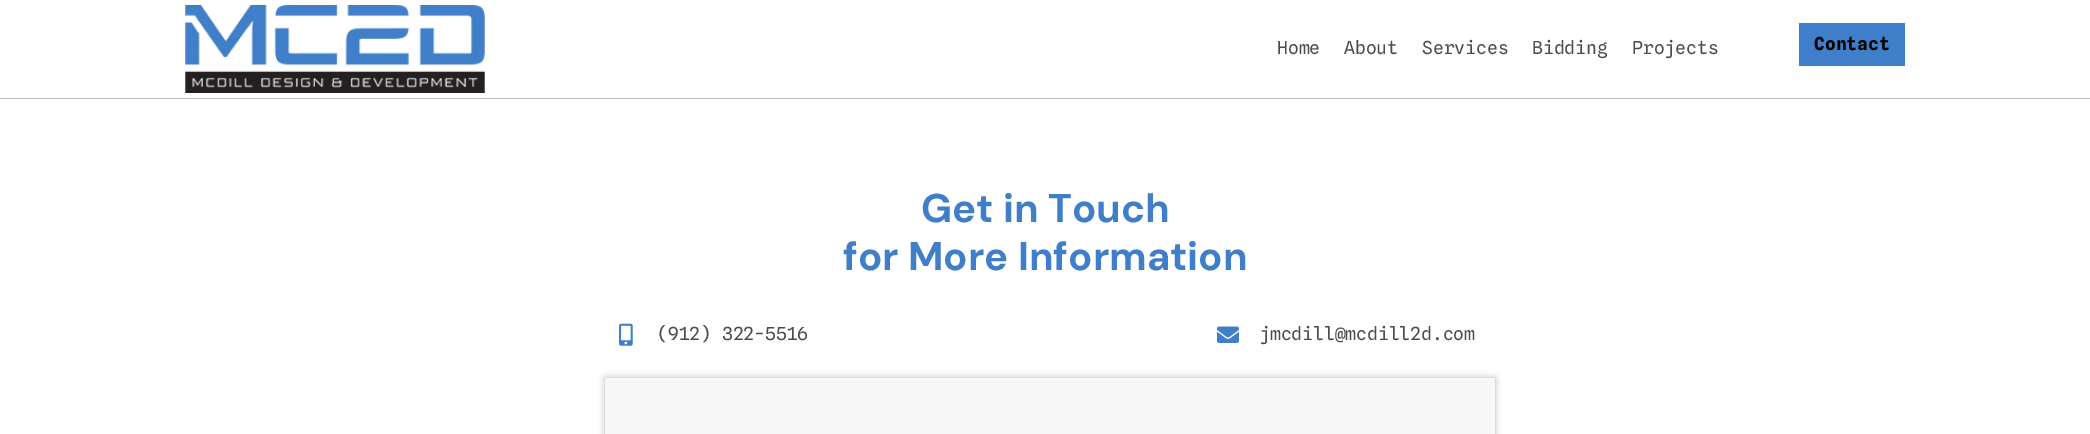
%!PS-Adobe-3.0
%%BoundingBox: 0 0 2090 434
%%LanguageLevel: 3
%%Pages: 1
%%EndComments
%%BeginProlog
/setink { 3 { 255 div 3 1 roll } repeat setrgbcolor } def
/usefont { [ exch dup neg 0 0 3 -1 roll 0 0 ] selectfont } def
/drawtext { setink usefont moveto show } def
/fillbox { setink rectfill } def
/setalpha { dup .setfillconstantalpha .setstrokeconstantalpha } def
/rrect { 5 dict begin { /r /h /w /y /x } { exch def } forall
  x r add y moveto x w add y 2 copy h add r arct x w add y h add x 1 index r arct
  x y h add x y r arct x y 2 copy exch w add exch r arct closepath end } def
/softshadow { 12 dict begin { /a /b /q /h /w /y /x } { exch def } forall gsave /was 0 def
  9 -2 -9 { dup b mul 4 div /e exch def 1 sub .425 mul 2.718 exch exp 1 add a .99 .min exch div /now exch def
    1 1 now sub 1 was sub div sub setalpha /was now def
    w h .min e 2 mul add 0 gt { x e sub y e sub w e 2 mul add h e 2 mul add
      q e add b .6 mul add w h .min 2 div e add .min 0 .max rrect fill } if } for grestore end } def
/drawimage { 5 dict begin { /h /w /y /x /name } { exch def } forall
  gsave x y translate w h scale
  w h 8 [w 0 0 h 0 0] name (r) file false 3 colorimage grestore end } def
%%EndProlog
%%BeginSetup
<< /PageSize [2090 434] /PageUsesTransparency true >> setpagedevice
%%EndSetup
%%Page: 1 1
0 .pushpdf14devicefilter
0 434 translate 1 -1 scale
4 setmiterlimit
0 0 2090 434 255 255 255 fillbox
0 98 2090 1 186 186 186 fillbox
(assets/img1.rgb) 185 5 300 88 drawimage
(Home) 1277 54 /SplineSansMono-Regular 18 76 76 76 drawtext
(About) 1344 54 /SplineSansMono-Regular 18 76 76 76 drawtext
(Services) 1422 54 /SplineSansMono-Regular 18 76 76 76 drawtext
(Bidding) 1532 54 /SplineSansMono-Regular 18 76 76 76 drawtext
(Projects) 1632 54 /SplineSansMono-Regular 18 76 76 76 drawtext
1799 23 106 43 63 127 201 fillbox
(Contact) 1814 50 /SplineSansMono-Bold 18 0 0 0 drawtext
(Get in Touch) 921 222 /DMSans-Bold 40 63 127 201 drawtext
(for More Information) 843 270 /DMSans-Bold 40 63 127 201 drawtext
(assets/img2.rgb) 619 323 14 23 drawimage
(\(912\) 322-5516) 657 340 /SplineSansMono-Regular 18 76 76 76 drawtext
(assets/img3.rgb) 1217 326 22 17 drawimage
(jmcdill@mcdill2d.com) 1259 340 /SplineSansMono-Regular 18 76 76 76 drawtext
181 184 181 setink
605 378 890 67 0 3.5 1 softshadow
605 378 890 56 247 247 247 fillbox
.poppdf14devicefilter showpage
%%EOF
